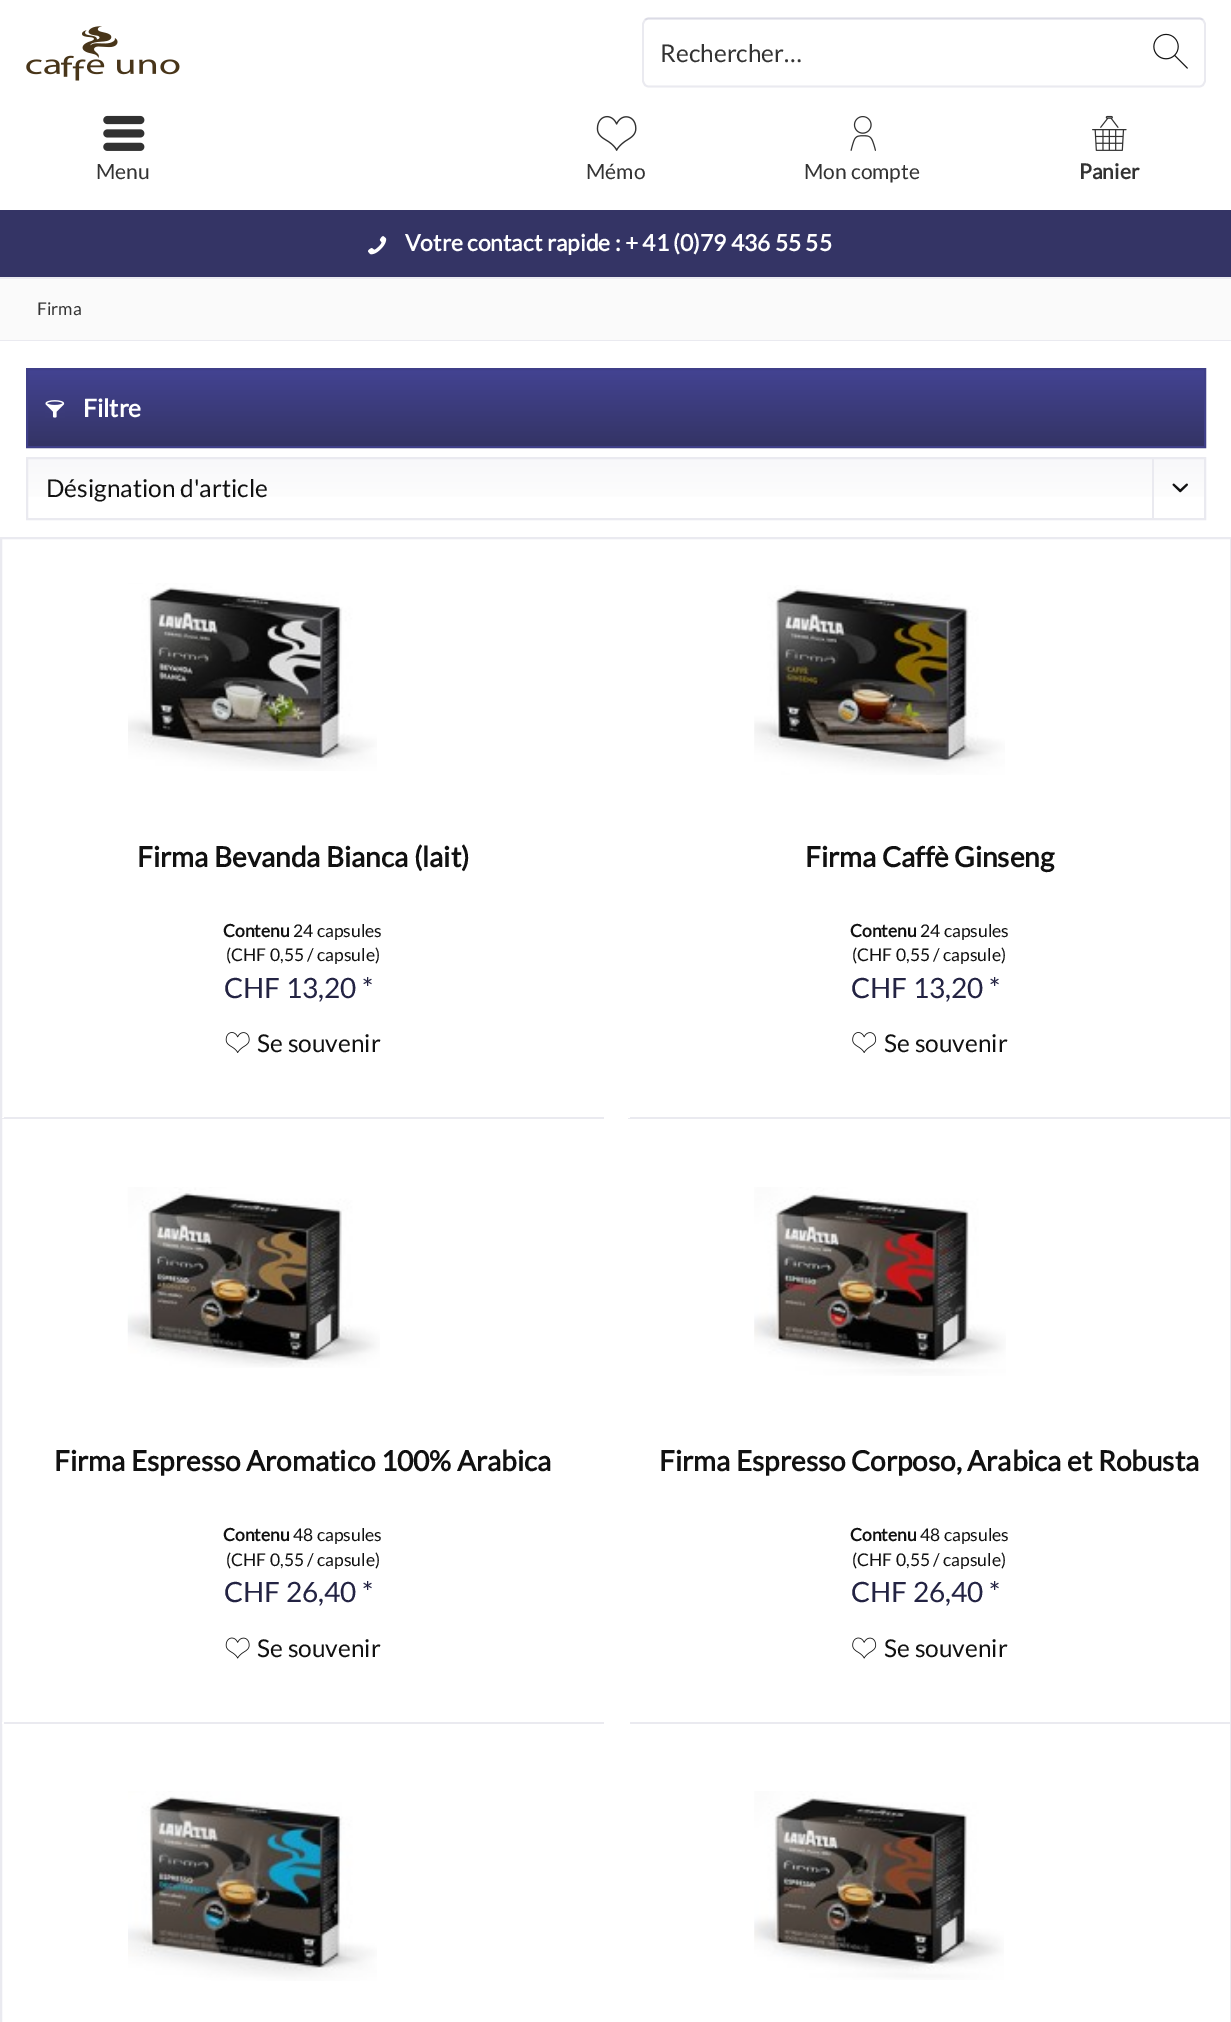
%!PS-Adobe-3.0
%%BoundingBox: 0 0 1231 2022
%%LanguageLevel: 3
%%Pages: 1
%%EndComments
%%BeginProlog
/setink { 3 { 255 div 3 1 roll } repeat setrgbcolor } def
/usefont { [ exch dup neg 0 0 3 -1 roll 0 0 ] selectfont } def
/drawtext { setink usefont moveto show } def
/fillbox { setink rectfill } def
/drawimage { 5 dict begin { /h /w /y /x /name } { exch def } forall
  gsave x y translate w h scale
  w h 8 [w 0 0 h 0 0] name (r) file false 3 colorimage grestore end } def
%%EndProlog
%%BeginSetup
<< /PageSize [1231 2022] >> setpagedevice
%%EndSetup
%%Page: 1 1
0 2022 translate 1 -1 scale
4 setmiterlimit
0 0 1231 2022 255 255 255 fillbox
(assets/img1.rgb) 26 26 154 55 drawimage
219 219 229 setink
1.8 setlinewidth
645 20 moveto 646 19 647.5 18.5 649 18.5 curveto 1199 18.5 lineto 1200.5 18.5 1202 19 1203 20 curveto stroke
234 234 240 setink
1203 20 moveto 1204 21.5 1205 23 1205 24.5 curveto 1205 80.5 lineto 1205 82 1204 83.5 1203 85 curveto 1202 86 1200.5 86.5 1199 86.5 curveto 649 86.5 lineto 647.5 86.5 646 86 645 85 curveto 644 83.5 643 82 643 80.5 curveto 643 24.5 lineto 643 23 644 21.5 645 20 curveto stroke
(Rechercher…) 660 62 /Lato-Regular 24.5 51 51 51 drawtext
(assets/img2.rgb) 1153 33 35 36 drawimage
(assets/img3.rgb) 103 115 42 36 drawimage
(Menu) 96 179 /Lato-Regular 21 51 51 51 drawtext
(assets/img4.rgb) 596 115 41 36 drawimage
(Mémo) 586 179 /Lato-Regular 21 51 51 51 drawtext
(assets/img5.rgb) 850 116 26 35 drawimage
(Mon compte) 804 179 /Lato-Regular 21 51 51 51 drawtext
(assets/img6.rgb) 1092 115 35 36 drawimage
(Panier) 1079 179 /Lato-Bold 21 51 51 51 drawtext
0 210 1231 67 52 52 101 fillbox
(assets/img7.rgb) 368 236 19 19 drawimage
(Votre contact rapide : + 41 \(0\)79 436 55 55) 405 251 /Lato-Bold 22.75 255 255 255 drawtext
0 340 1231 1 234 234 240 fillbox
0 279 1231 61 250 250 250 fillbox
0 277 1231 2 234 234 240 fillbox
(Firma) 37 315 /Lato-Regular 17.5 51 51 51 drawtext
gsave 28 370 moveto 1204 370 lineto 1204 446 lineto 28 446 lineto closepath clip newpath
<< /ShadingType 2 /ColorSpace /DeviceRGB /Coords [616 369 616 446] /Extend [true true] /Function << /FunctionType 2 /Domain [0 1] /C0 [0.263 0.263 0.576] /C1 [0.204 0.204 0.396] /N 1 >> >> shfill grestore
63 63 136 setink
2 setlinewidth
27 369 1178 78 rectstroke
(assets/img8.rgb) 45 400 20 18 drawimage
(Filtre) 83 417 /Lato-Bold 24.5 255 255 255 drawtext
gsave 28 459 moveto 1204 459 lineto 1204 497 lineto 28 497 lineto closepath clip newpath
<< /ShadingType 2 /ColorSpace /DeviceRGB /Coords [616 458 616 518] /Extend [true true] /Function << /FunctionType 2 /Domain [0 1] /C0 [0.973 0.973 0.98] /C1 [1 1 1] /N 1 >> >> shfill grestore
234 234 240 setink
27 458 1178 61 rectstroke
(Désignation d'article) 46 497 /Lato-Regular 24.5 17 17 17 drawtext
1152 459 2 61 234 234 240 fillbox
(assets/img9.rgb) 1172 483 16 10 drawimage
1 538 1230 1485 rectstroke
2 1117 602 2 234 234 240 fillbox
2 1117 2 1 255 255 255 fillbox
(assets/img10.rgb) 128 583 249 188 drawimage
(Firma Bevanda Bianca \(lait\)) 137 867 /Lato-Bold 28 17 17 17 drawtext
(Contenu) 223 937 /Lato-Bold 17.5 17 17 17 drawtext
(24 capsules) 293 937 /Lato-Regular 17.5 17 17 17 drawtext
(\(CHF 0,55 / capsule\)) 226 961 /Lato-Regular 17.5 17 17 17 drawtext
(CHF 13,20 *) 224 998 /Lato-Regular 28 35 35 67 drawtext
(assets/img11.rgb) 225 1032 25 21 drawimage
(Se souvenir) 257 1052 /Lato-Regular 24.5 17 17 17 drawtext
628 1117 602 2 234 234 240 fillbox
628 1117 2 1 255 255 255 fillbox
(assets/img12.rgb) 754 585 251 190 drawimage
(Firma Caffè Ginseng) 805 867 /Lato-Bold 28 17 17 17 drawtext
(Contenu) 850 937 /Lato-Bold 17.5 17 17 17 drawtext
(24 capsules) 920 937 /Lato-Regular 17.5 17 17 17 drawtext
(\(CHF 0,55 / capsule\)) 852 961 /Lato-Regular 17.5 17 17 17 drawtext
(CHF 13,20 *) 851 998 /Lato-Regular 28 35 35 67 drawtext
(assets/img13.rgb) 852 1032 25 21 drawimage
(Se souvenir) 884 1052 /Lato-Regular 24.5 17 17 17 drawtext
2 1722 602 2 234 234 240 fillbox
2 1722 2 2 255 255 255 fillbox
(assets/img14.rgb) 127 1187 253 181 drawimage
(Firma Espresso Aromatico 100% Arabica) 54 1471 /Lato-Bold 28 17 17 17 drawtext
(Contenu) 223 1541 /Lato-Bold 17.5 17 17 17 drawtext
(48 capsules) 293 1541 /Lato-Regular 17.5 17 17 17 drawtext
(\(CHF 0,55 / capsule\)) 226 1566 /Lato-Regular 17.5 17 17 17 drawtext
(CHF 26,40 *) 224 1602 /Lato-Regular 28 35 35 67 drawtext
(assets/img15.rgb) 225 1637 25 22 drawimage
(Se souvenir) 257 1657 /Lato-Regular 24.5 17 17 17 drawtext
628 1722 602 2 234 234 240 fillbox
628 1722 2 2 255 255 255 fillbox
(assets/img16.rgb) 754 1187 252 189 drawimage
(Firma Espresso Corposo, Arabica et Robusta) 659 1471 /Lato-Bold 28 17 17 17 drawtext
(Contenu) 850 1541 /Lato-Bold 17.5 17 17 17 drawtext
(48 capsules) 920 1541 /Lato-Regular 17.5 17 17 17 drawtext
(\(CHF 0,55 / capsule\)) 852 1566 /Lato-Regular 17.5 17 17 17 drawtext
(CHF 26,40 *) 851 1602 /Lato-Regular 28 35 35 67 drawtext
(assets/img17.rgb) 852 1637 25 22 drawimage
(Se souvenir) 884 1657 /Lato-Regular 24.5 17 17 17 drawtext
(assets/img18.rgb) 128 1791 249 190 drawimage
(assets/img19.rgb) 754 1791 250 189 drawimage
showpage
%%EOF
